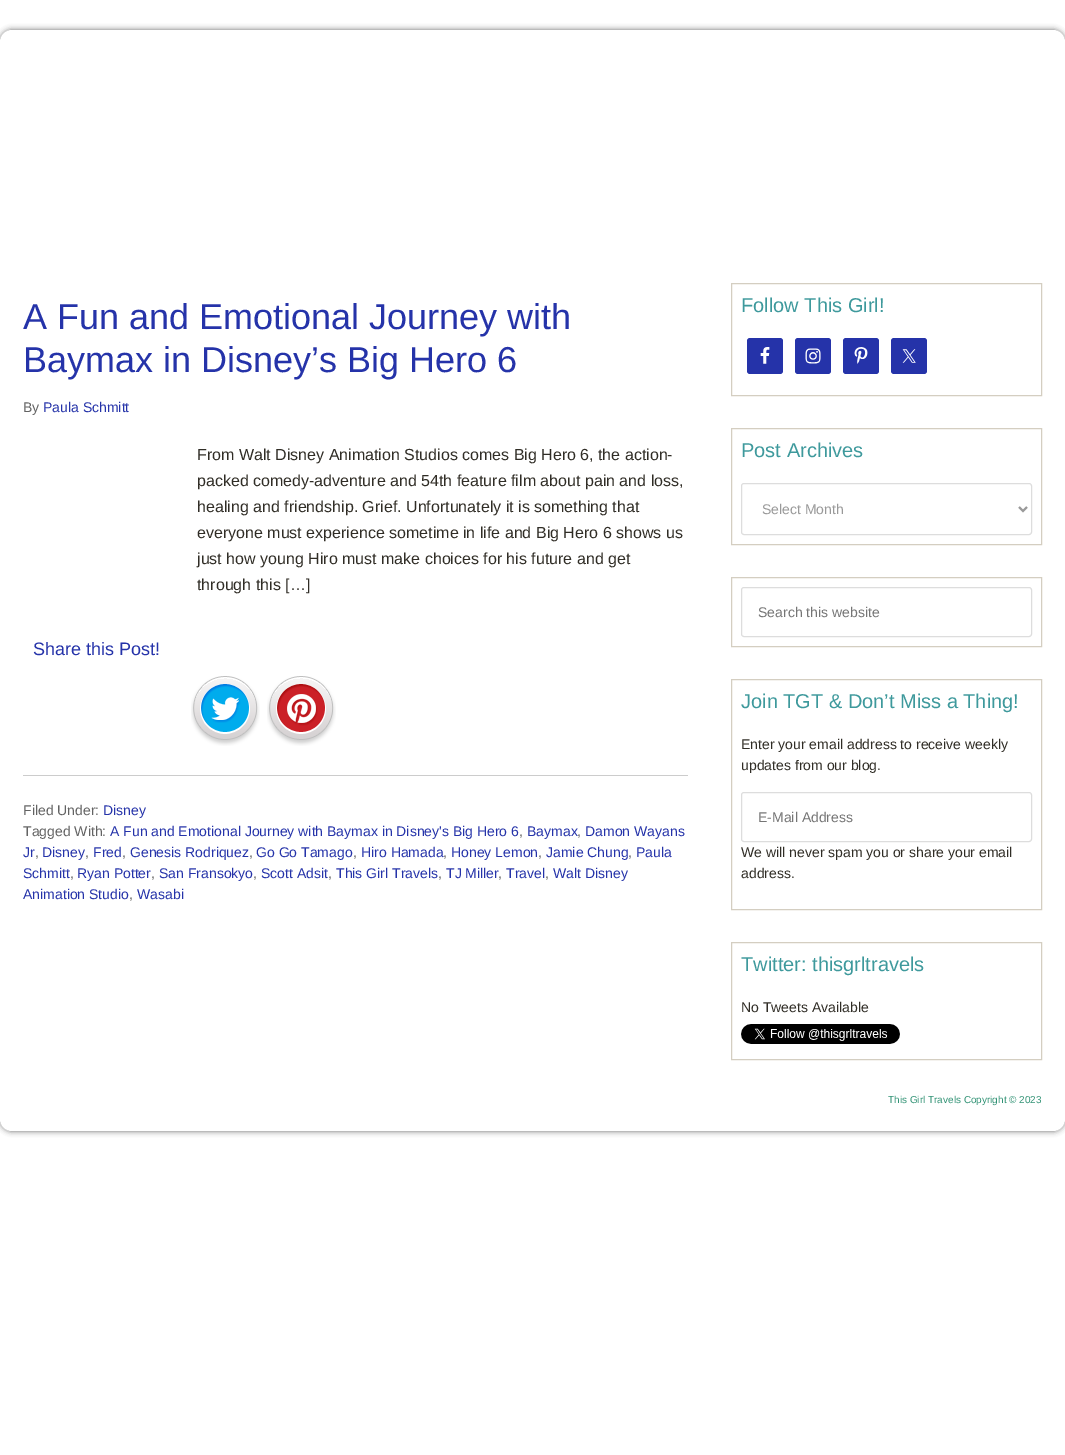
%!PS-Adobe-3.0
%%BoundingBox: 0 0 1065 1455
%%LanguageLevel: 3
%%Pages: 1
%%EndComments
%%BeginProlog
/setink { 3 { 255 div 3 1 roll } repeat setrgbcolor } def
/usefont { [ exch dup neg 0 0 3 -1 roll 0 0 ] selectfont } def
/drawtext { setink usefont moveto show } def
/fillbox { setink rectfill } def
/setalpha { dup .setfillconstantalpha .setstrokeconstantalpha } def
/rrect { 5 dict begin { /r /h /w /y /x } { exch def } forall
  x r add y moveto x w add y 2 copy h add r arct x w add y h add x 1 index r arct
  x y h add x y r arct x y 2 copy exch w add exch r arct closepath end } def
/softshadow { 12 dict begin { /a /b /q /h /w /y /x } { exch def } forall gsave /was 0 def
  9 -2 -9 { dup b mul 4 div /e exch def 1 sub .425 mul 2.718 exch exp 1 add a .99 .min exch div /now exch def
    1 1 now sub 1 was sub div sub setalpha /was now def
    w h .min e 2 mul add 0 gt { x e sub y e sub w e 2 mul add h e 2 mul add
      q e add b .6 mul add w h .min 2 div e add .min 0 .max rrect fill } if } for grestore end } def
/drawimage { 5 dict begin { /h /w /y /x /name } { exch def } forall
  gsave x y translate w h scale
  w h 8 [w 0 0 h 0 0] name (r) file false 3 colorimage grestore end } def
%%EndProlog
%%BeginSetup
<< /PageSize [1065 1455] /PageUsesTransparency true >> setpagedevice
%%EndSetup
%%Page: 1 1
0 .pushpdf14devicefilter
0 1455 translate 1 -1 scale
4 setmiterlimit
0 0 1065 1455 255 255 255 fillbox
50 50 50 setink
0 30 1065 1101 12 3 0.75 softshadow
255 255 255 setink
0 30 1065 1101 12 rrect fill
(A Fun and Emotional Journey with) 23 329 /LiberationSans-Regular 36 37 51 169 drawtext
(Baymax in Disney’s Big Hero 6) 23 372 /LiberationSans-Regular 36 37 51 169 drawtext
(By) 23 412 /LiberationSans-Regular 14 99 99 99 drawtext
(Paula Schmitt) 43 412 /LiberationSans-Regular 14 37 51 169 drawtext
(From Walt Disney Animation Studios comes Big Hero 6, the action-) 197 460 /LiberationSans-Regular 16 48 45 38 drawtext
(packed comedy-adventure and 54th feature film about pain and loss,) 197 486 /LiberationSans-Regular 16 48 45 38 drawtext
(healing and friendship. Grief. Unfortunately it is something that) 197 512 /LiberationSans-Regular 16 48 45 38 drawtext
(everyone must experience sometime in life and Big Hero 6 shows us) 197 538 /LiberationSans-Regular 16 48 45 38 drawtext
(just how young Hiro must make choices for his future and get) 197 564 /LiberationSans-Regular 16 48 45 38 drawtext
(through this […]) 197 590 /LiberationSans-Regular 16 48 45 38 drawtext
(Share this Post!) 33 655 /LiberationSans-Regular 18 37 51 169 drawtext
(assets/img1.rgb) 191 676 69 70 drawimage
(assets/img2.rgb) 267 676 69 70 drawimage
23 775 665 1 204 204 204 fillbox
(Filed Under:) 23 815 /LiberationSans-Regular 14 99 99 99 drawtext
(Disney) 103 815 /LiberationSans-Regular 14 37 51 169 drawtext
(Tagged With:) 23 836 /LiberationSans-Regular 14 99 99 99 drawtext
(A Fun and Emotional Journey with Baymax in Disney's Big Hero 6) 110 836 /LiberationSans-Regular 14 37 51 169 drawtext
(,) 519 836 /LiberationSans-Regular 14 99 99 99 drawtext
(Baymax) 527 836 /LiberationSans-Regular 14 37 51 169 drawtext
(,) 577 836 /LiberationSans-Regular 14 99 99 99 drawtext
(Damon Wayans) 585 836 /LiberationSans-Regular 14 37 51 169 drawtext
(Jr) 23 857 /LiberationSans-Regular 14 37 51 169 drawtext
(,) 35 857 /LiberationSans-Regular 14 99 99 99 drawtext
(Disney) 42 857 /LiberationSans-Regular 14 37 51 169 drawtext
(,) 85 857 /LiberationSans-Regular 14 99 99 99 drawtext
(Fred) 93 857 /LiberationSans-Regular 14 37 51 169 drawtext
(,) 122 857 /LiberationSans-Regular 14 99 99 99 drawtext
(Genesis Rodriquez) 130 857 /LiberationSans-Regular 14 37 51 169 drawtext
(,) 249 857 /LiberationSans-Regular 14 99 99 99 drawtext
(Go Go Tamago) 256 857 /LiberationSans-Regular 14 37 51 169 drawtext
(,) 353 857 /LiberationSans-Regular 14 99 99 99 drawtext
(Hiro Hamada) 361 857 /LiberationSans-Regular 14 37 51 169 drawtext
(,) 443 857 /LiberationSans-Regular 14 99 99 99 drawtext
(Honey Lemon) 451 857 /LiberationSans-Regular 14 37 51 169 drawtext
(,) 538 857 /LiberationSans-Regular 14 99 99 99 drawtext
(Jamie Chung) 546 857 /LiberationSans-Regular 14 37 51 169 drawtext
(,) 628 857 /LiberationSans-Regular 14 99 99 99 drawtext
(Paula) 636 857 /LiberationSans-Regular 14 37 51 169 drawtext
(Schmitt) 23 878 /LiberationSans-Regular 14 37 51 169 drawtext
(,) 70 878 /LiberationSans-Regular 14 99 99 99 drawtext
(Ryan Potter) 77 878 /LiberationSans-Regular 14 37 51 169 drawtext
(,) 151 878 /LiberationSans-Regular 14 99 99 99 drawtext
(San Fransokyo) 159 878 /LiberationSans-Regular 14 37 51 169 drawtext
(,) 253 878 /LiberationSans-Regular 14 99 99 99 drawtext
(Scott Adsit) 261 878 /LiberationSans-Regular 14 37 51 169 drawtext
(,) 328 878 /LiberationSans-Regular 14 99 99 99 drawtext
(This Girl Travels) 336 878 /LiberationSans-Regular 14 37 51 169 drawtext
(,) 438 878 /LiberationSans-Regular 14 99 99 99 drawtext
(TJ Miller) 446 878 /LiberationSans-Regular 14 37 51 169 drawtext
(,) 498 878 /LiberationSans-Regular 14 99 99 99 drawtext
(Travel) 506 878 /LiberationSans-Regular 14 37 51 169 drawtext
(,) 545 878 /LiberationSans-Regular 14 99 99 99 drawtext
(Walt Disney) 553 878 /LiberationSans-Regular 14 37 51 169 drawtext
(Animation Studio) 23 899 /LiberationSans-Regular 14 37 51 169 drawtext
(,) 129 899 /LiberationSans-Regular 14 99 99 99 drawtext
(Wasabi) 137 899 /LiberationSans-Regular 14 37 51 169 drawtext
212 206 193 setink
731.5 283.5 310 112 rectstroke
(Follow This Girl!) 741 312 /LiberationSans-Regular 20 62 153 156 drawtext
37 51 169 setink
747 338 36 36 3 rrect fill
(assets/img3.rgb) 760 347 10 17 drawimage
795 338 36 36 3 rrect fill
(assets/img4.rgb) 805 348 16 16 drawimage
843 338 36 36 3 rrect fill
(assets/img5.rgb) 854 347 14 17 drawimage
891 338 36 36 3 rrect fill
(assets/img6.rgb) 902 349 14 14 drawimage
212 206 193 setink
731.5 428.5 310 116 rectstroke
(Post Archives) 741 457 /LiberationSans-Regular 20 62 153 156 drawtext
221 221 221 setink
741.5 483.5 290 51 2.5 rrect stroke
153 153 153 setink
2 setlinewidth
1019 507 moveto 1023 511 lineto 1027 507 lineto stroke
(Select Month) 762 514 /LiberationSans-Regular 14 153 153 153 drawtext
212 206 193 setink
1 setlinewidth
731.5 577.5 310 69 rectstroke
221 221 221 setink
741.5 587.5 290 49 2.5 rrect stroke
(Search this website) 758 617 /LiberationSans-Regular 14 117 117 117 drawtext
212 206 193 setink
731.5 679.5 310 230 rectstroke
(Join TGT & Don’t Miss a Thing!) 741 708 /LiberationSans-Regular 20 62 153 156 drawtext
(Enter your email address to receive weekly) 741 749 /LiberationSans-Regular 14 48 45 38 drawtext
(updates from our blog.) 741 770 /LiberationSans-Regular 14 48 45 38 drawtext
221 221 221 setink
741.5 792.5 290 49 2.5 rrect stroke
(E-Mail Address) 758 822 /LiberationSans-Regular 14 117 117 117 drawtext
(We will never spam you or share your email) 741 857 /LiberationSans-Regular 14 48 45 38 drawtext
(address.) 741 878 /LiberationSans-Regular 14 48 45 38 drawtext
212 206 193 setink
731.5 942.5 310 117 rectstroke
(Twitter: thisgrltravels) 741 971 /LiberationSans-Regular 20 62 153 156 drawtext
(No Tweets Available) 741 1012 /LiberationSans-Regular 14 48 45 38 drawtext
(assets/img7.rgb) 741 1024 159 20 drawimage
(This Girl Travels Copyright © 2023) 888 1103 /LiberationSans-Regular 10 47 145 115 drawtext
.poppdf14devicefilter showpage
%%EOF
